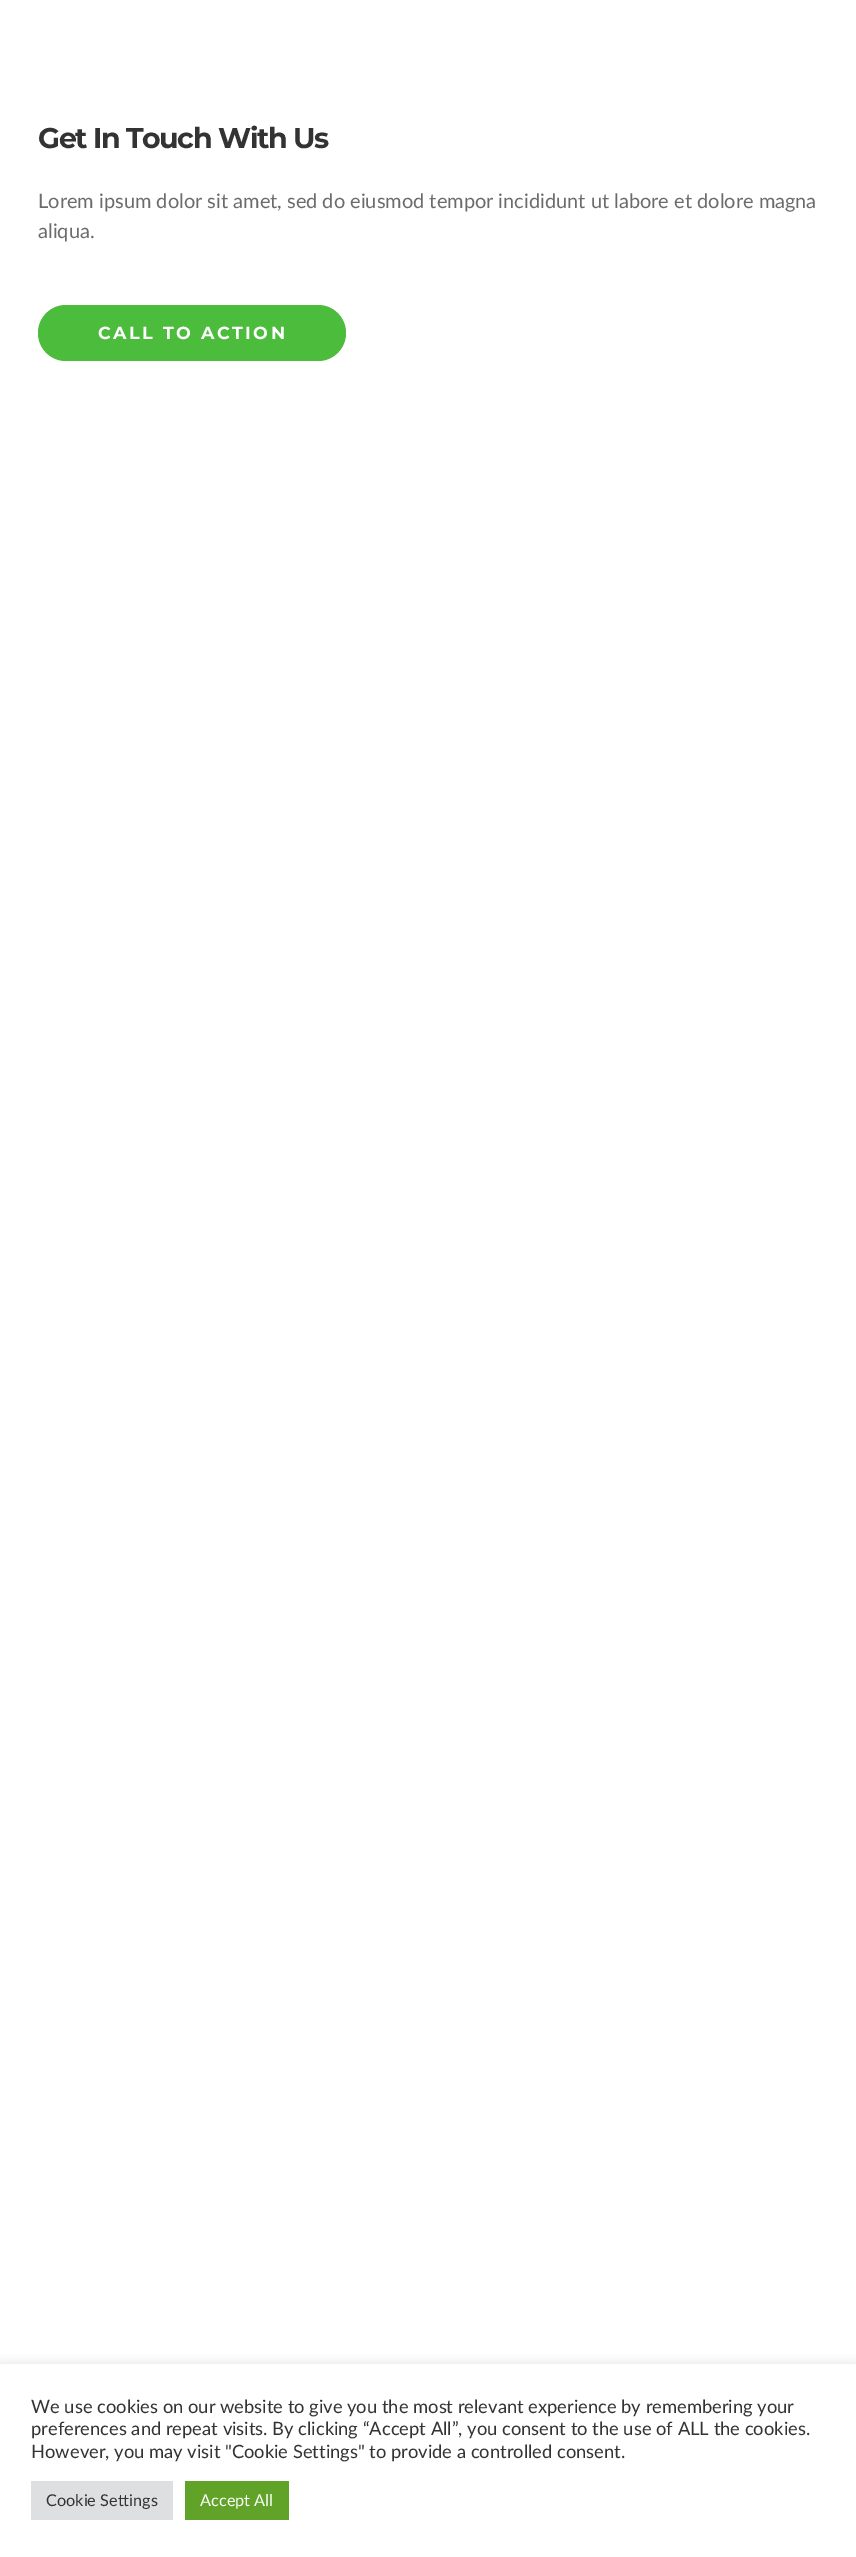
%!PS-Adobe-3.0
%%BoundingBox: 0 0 856 2557
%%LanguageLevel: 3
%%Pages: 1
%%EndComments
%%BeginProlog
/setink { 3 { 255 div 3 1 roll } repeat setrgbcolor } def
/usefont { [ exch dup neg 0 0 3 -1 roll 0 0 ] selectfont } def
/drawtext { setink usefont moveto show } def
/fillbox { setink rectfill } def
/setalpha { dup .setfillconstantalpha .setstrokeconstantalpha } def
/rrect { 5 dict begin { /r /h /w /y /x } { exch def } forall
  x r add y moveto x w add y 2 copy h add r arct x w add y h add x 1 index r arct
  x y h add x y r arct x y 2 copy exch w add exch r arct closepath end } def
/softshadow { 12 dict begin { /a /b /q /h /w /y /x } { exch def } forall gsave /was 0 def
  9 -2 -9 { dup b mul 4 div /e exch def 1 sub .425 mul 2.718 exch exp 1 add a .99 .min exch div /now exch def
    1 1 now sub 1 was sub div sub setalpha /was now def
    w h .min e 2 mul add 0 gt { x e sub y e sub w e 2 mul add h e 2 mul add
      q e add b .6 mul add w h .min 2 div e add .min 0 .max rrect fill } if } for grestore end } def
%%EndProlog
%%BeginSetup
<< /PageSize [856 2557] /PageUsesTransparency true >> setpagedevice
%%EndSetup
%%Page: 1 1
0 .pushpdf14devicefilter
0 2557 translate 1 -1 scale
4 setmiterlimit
0 0 856 2557 255 255 255 fillbox
/Montserrat-Bold 28.5 usefont
51 51 51 setink
38 148 moveto -1.4 0 (Get In Touch With Us) ashow
(Lorem ipsum dolor sit amet, sed do eiusmod tempor incididunt ut labore et dolore magna) 38 208 /Lato-Regular 20 107 107 107 drawtext
(aliqua.) 38 238 /Lato-Regular 20 107 107 107 drawtext
75 188 60 setink
38 305 308 56 28 rrect fill
/Montserrat-Bold 17.5 usefont
255 255 255 setink
98 339 moveto 2.5 0 (CALL TO ACTION) ashow
gsave
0 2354 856 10 rectclip
172 171 171 setink
0 2363 856 193 0 6 0.3 softshadow
grestore
(We use cookies on our website to give you the most relevant experience by remembering your) 31 2413 /Lato-Regular 18.35 51 51 51 drawtext
(preferences and repeat visits. By clicking “Accept All”, you consent to the use of ALL the cookies.) 31 2435 /Lato-Regular 18.35 51 51 51 drawtext
(However, you may visit "Cookie Settings" to provide a controlled consent.) 31 2458 /Lato-Regular 18.35 51 51 51 drawtext
31 2481 142 39 222 223 224 fillbox
(Cookie Settings) 46 2506 /Lato-Regular 16.25 51 51 51 drawtext
185 2481 104 39 97 162 41 fillbox
(Accept All) 200 2506 /Lato-Regular 16.25 255 255 255 drawtext
.poppdf14devicefilter showpage
%%EOF
